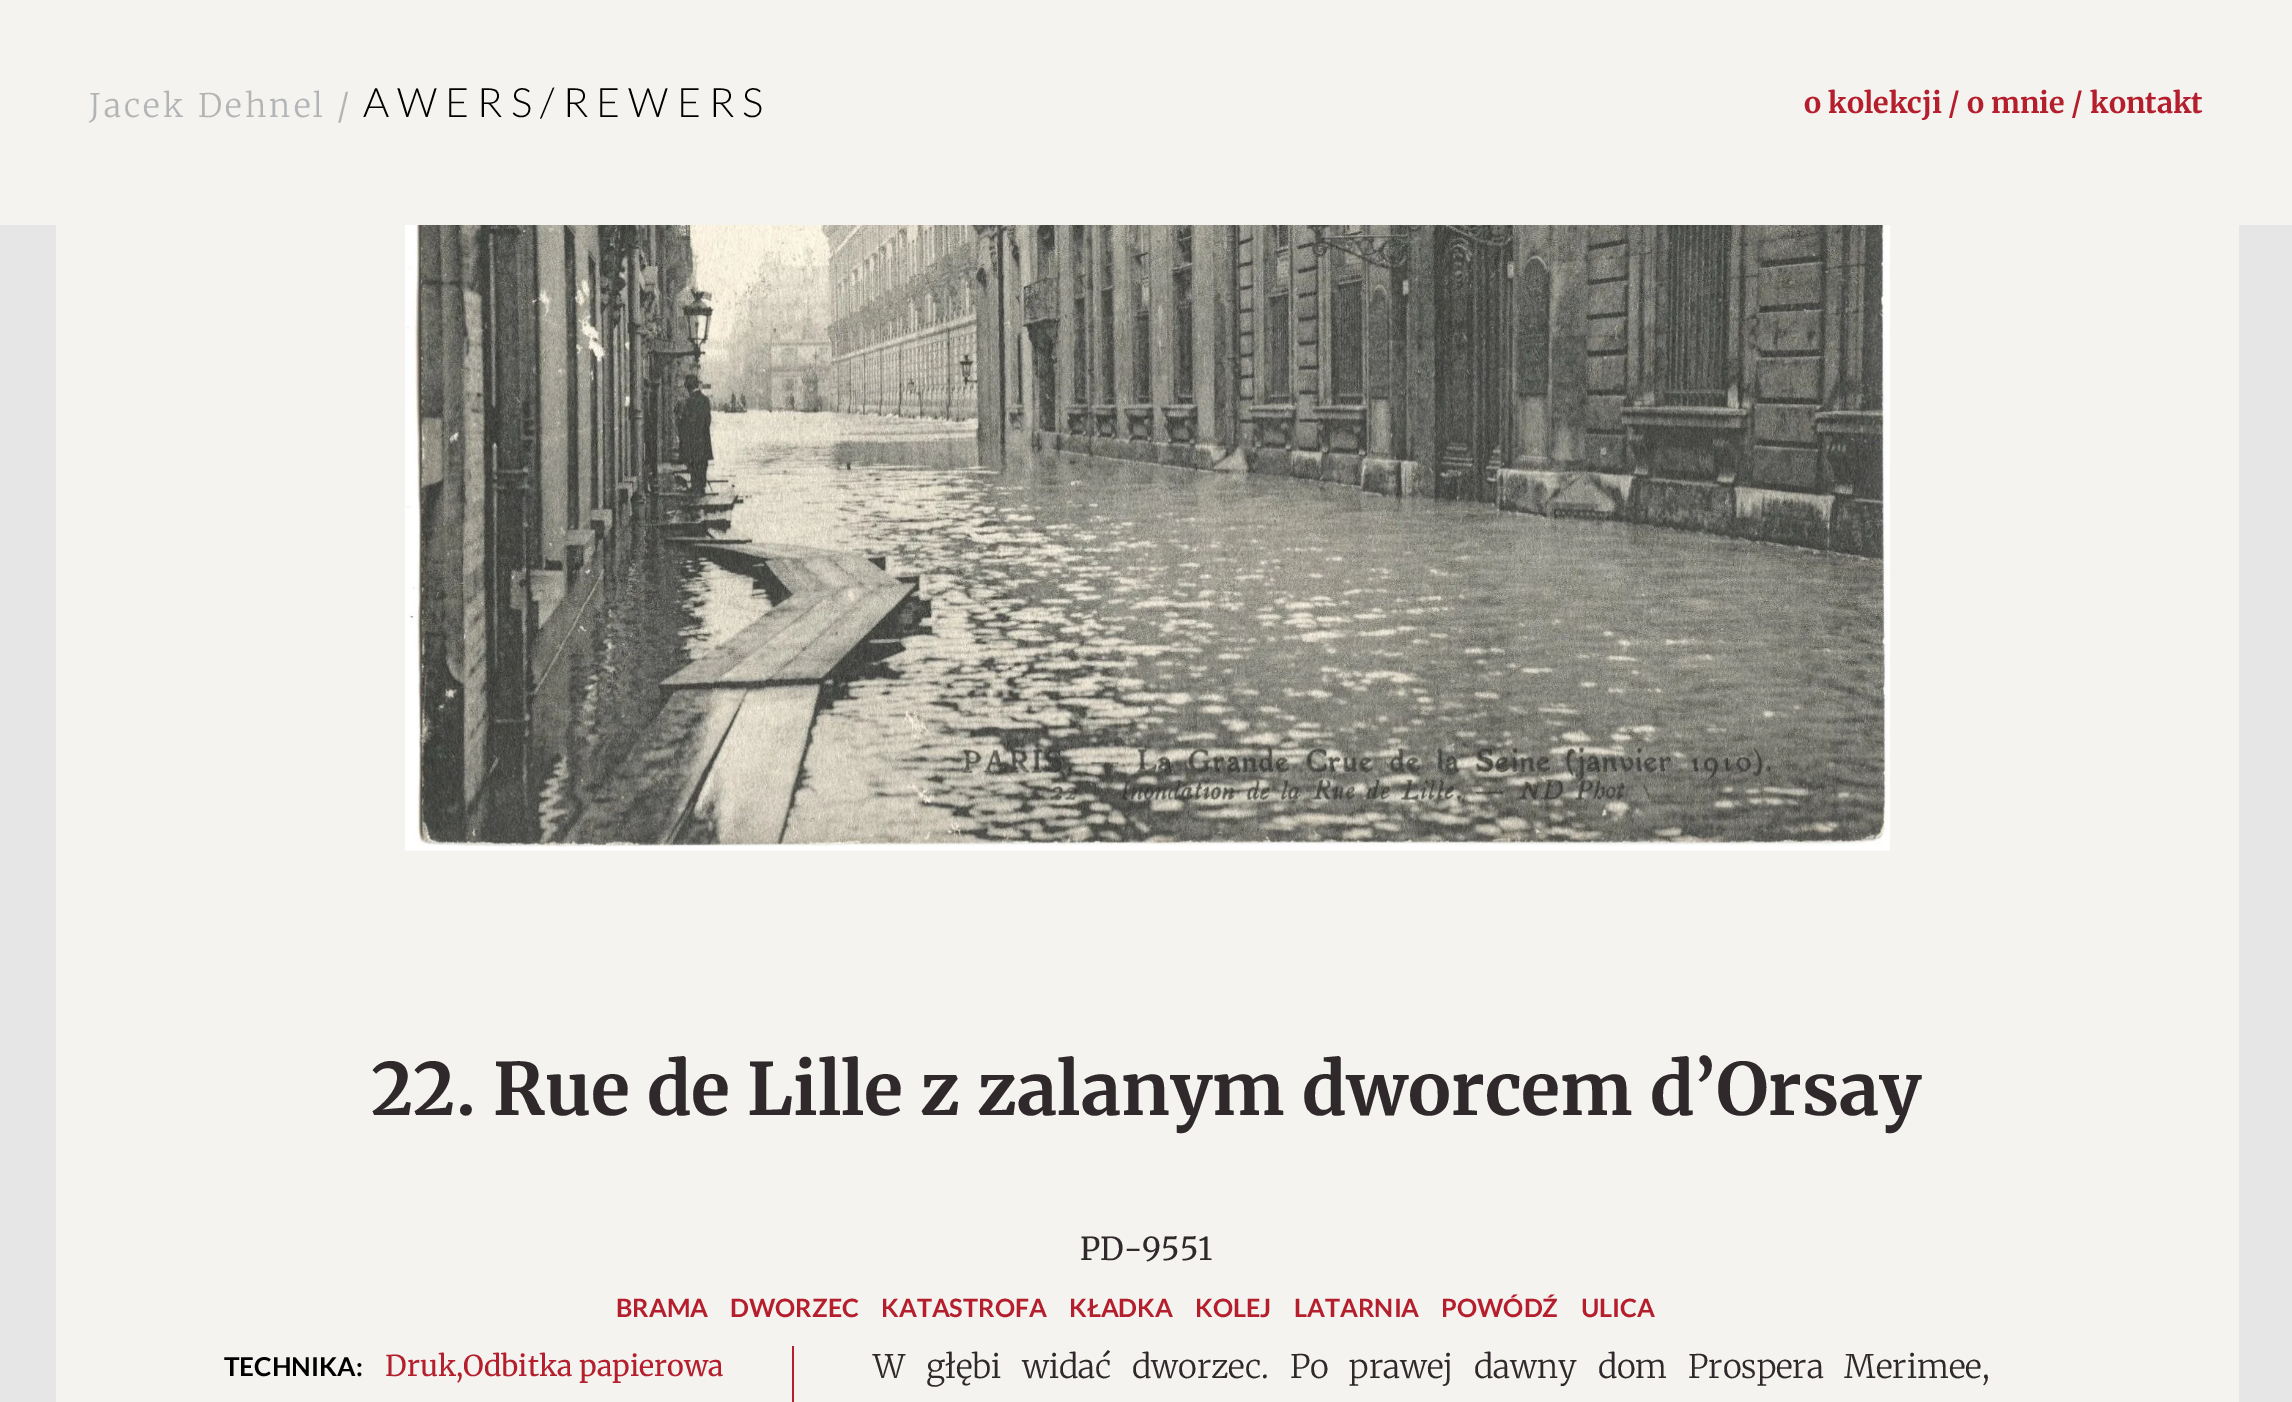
%!PS-Adobe-3.0
%%BoundingBox: 0 0 2292 1402
%%LanguageLevel: 3
%%Pages: 1
%%EndComments
%%BeginProlog
/setink { 3 { 255 div 3 1 roll } repeat setrgbcolor } def
/usefont { [ exch dup neg 0 0 3 -1 roll 0 0 ] selectfont } def
/drawtext { setink usefont moveto show } def
/fillbox { setink rectfill } def
/drawimage { 5 dict begin { /h /w /y /x /name } { exch def } forall
  gsave x y translate w h scale
  w h 8 [w 0 0 h 0 0] name (r) file false 3 colorimage grestore end } def
%%EndProlog
%%BeginSetup
<< /PageSize [2292 1402] >> setpagedevice
%%EndSetup
%%Page: 1 1
0 1402 translate 1 -1 scale
4 setmiterlimit
0 0 2292 1402 230 230 230 fillbox
0 0 2292 225 244 243 239 fillbox
/Merriweather-Light 32.4 usefont
178 180 182 setink
89 117 moveto 3.25 0 (Jacek Dehnel /) ashow
/Lato-Light 40.5 usefont
0 0 0 setink
363 117 moveto 8.1 0 (AWERS/REWERS) ashow
(o kolekcji / o mnie / kontakt) 1804 113 /Merriweather-Bold 28.75 181 30 45 drawtext
56 225 2183 1177 244 243 239 fillbox
(assets/img1.rgb) 405 225 1485 626 drawimage
(22. Rue de Lille z zalanym dworcem d’Orsay) 371 1115 /Merriweather-Bold 72 47 41 43 drawtext
(PD-9551) 1080 1260 /Merriweather-Regular 31.5 47 41 43 drawtext
(BRAMA) 616 1317 /Lato-Bold 25.25 181 30 45 drawtext
(DWORZEC) 730 1317 /Lato-Bold 25.25 181 30 45 drawtext
(KATASTROFA) 881 1317 /Lato-Bold 25.25 181 30 45 drawtext
(KŁADKA) 1069 1317 /Lato-Bold 25.25 181 30 45 drawtext
(KOLEJ) 1195 1317 /Lato-Bold 25.25 181 30 45 drawtext
(LATARNIA) 1294 1317 /Lato-Bold 25.25 181 30 45 drawtext
(POWÓDŹ) 1441 1317 /Lato-Bold 25.25 181 30 45 drawtext
(ULICA) 1581 1317 /Lato-Bold 25.25 181 30 45 drawtext
792 1346 2 56 181 30 45 fillbox
(TECHNIKA:) 224 1376 /Lato-Bold 26 0 0 0 drawtext
(Druk,Odbitka papierowa) 385 1376 /Merriweather-Regular 28.75 181 30 45 drawtext
/Merriweather-Light 32.4 usefont
47 41 43 setink
873 1378 moveto 13 0 32 (W głębi widać dworzec. Po prawej dawny dom Prospera Merimee,) widthshow
showpage
%%EOF
